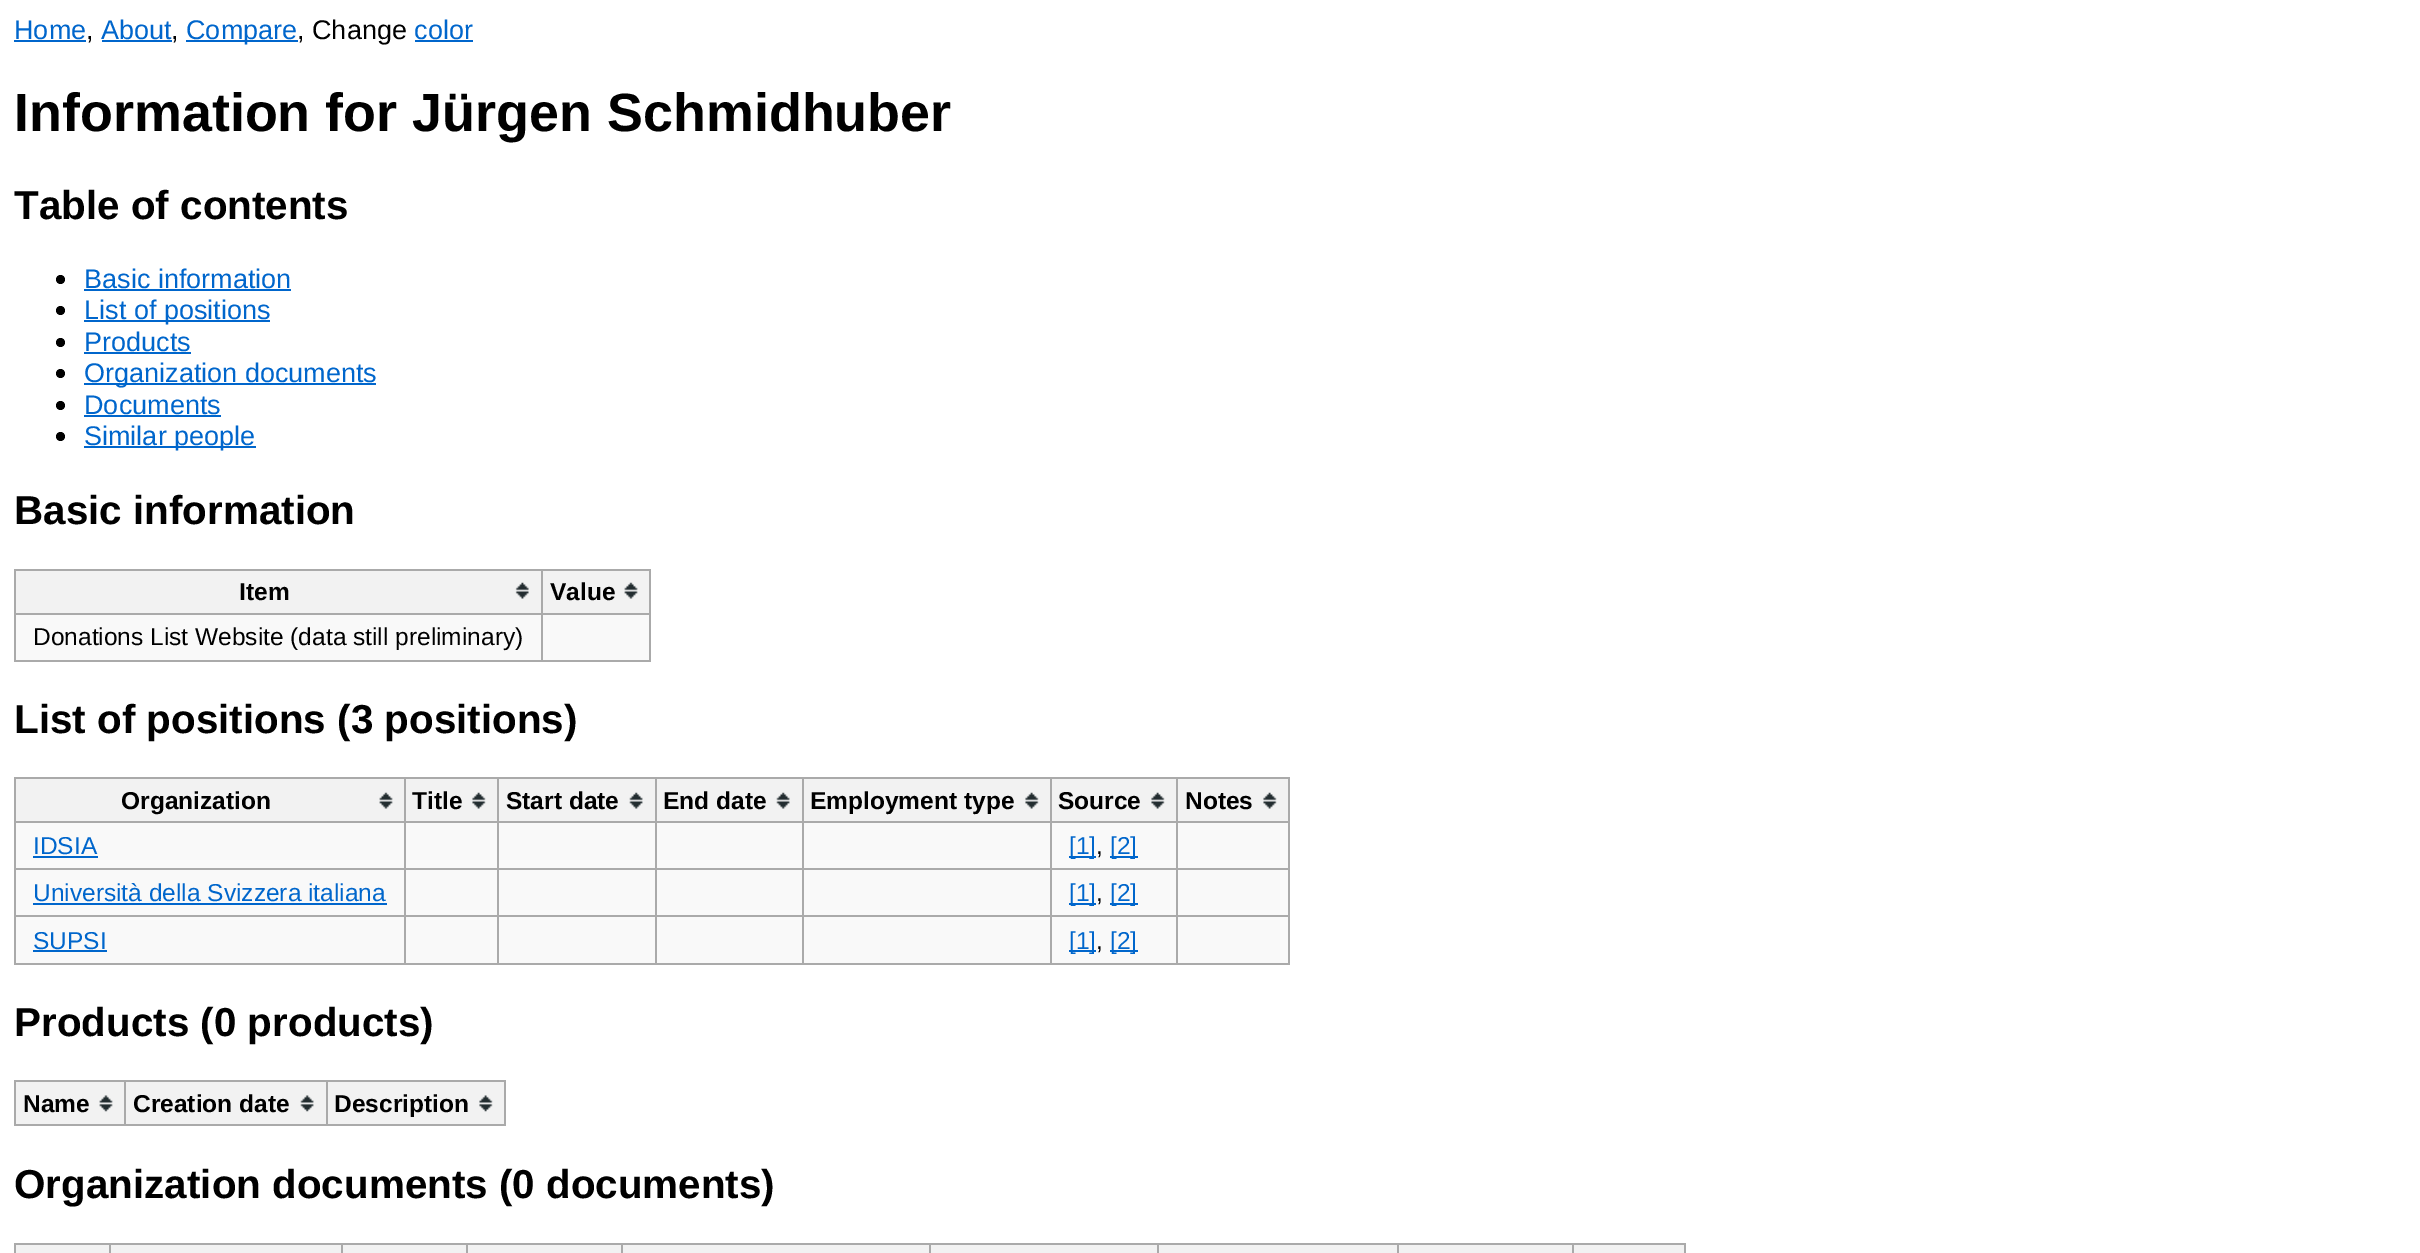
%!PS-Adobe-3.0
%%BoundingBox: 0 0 2420 1253
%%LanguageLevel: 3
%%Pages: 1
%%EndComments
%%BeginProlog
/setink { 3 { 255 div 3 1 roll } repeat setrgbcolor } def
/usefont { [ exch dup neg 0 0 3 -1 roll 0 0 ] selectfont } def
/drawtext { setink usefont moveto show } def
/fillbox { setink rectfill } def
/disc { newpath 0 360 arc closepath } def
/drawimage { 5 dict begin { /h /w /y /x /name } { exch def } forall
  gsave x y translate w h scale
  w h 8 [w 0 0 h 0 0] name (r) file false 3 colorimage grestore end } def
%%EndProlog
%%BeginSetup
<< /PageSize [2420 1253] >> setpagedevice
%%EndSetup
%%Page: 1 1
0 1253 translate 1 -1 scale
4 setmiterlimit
0 0 2420 1253 255 255 255 fillbox
(Home) 14 39 /LiberationSans-Regular 27 0 102 204 drawtext
14 40 72 2 0 102 204 fillbox
(,) 86 39 /LiberationSans-Regular 27 0 0 0 drawtext
(About) 101 39 /LiberationSans-Regular 27 0 102 204 drawtext
102 40 70 2 0 102 204 fillbox
(,) 171 39 /LiberationSans-Regular 27 0 0 0 drawtext
186 40 112 2 0 102 204 fillbox
(Compare) 186 39 /LiberationSans-Regular 27 0 102 204 drawtext
(, Change) 297 39 /LiberationSans-Regular 27 0 0 0 drawtext
(color) 414 39 /LiberationSans-Regular 27 0 102 204 drawtext
415 40 58 2 0 102 204 fillbox
(Information for Jürgen Schmidhuber) 14 131 /LiberationSans-Bold 53.9 0 0 0 drawtext
(Table of contents) 14 219 /LiberationSans-Bold 40.4 0 0 0 drawtext
60.5 279.5 4.5 disc fill
(Basic information) 84 288 /LiberationSans-Regular 27 0 102 204 drawtext
84 289 207 2 0 102 204 fillbox
0 0 0 setink
60.5 310.5 4.5 disc fill
84 320 186 2 0 102 204 fillbox
(List of positions) 84 319 /LiberationSans-Regular 27 0 102 204 drawtext
0 0 0 setink
60.5 342.5 4.5 disc fill
(Products) 84 351 /LiberationSans-Regular 27 0 102 204 drawtext
84 352 107 2 0 102 204 fillbox
0 0 0 setink
60.5 373.5 4.5 disc fill
84 383 292 2 0 102 204 fillbox
(Organization documents) 84 382 /LiberationSans-Regular 27 0 102 204 drawtext
0 0 0 setink
60.5 405.5 4.5 disc fill
(Documents) 84 414 /LiberationSans-Regular 27 0 102 204 drawtext
84 415 137 2 0 102 204 fillbox
0 0 0 setink
60.5 436.5 4.5 disc fill
84 446 172 2 0 102 204 fillbox
(Similar people) 84 445 /LiberationSans-Regular 27 0 102 204 drawtext
(Basic information) 14 524 /LiberationSans-Bold 40.4 0 0 0 drawtext
16 615 633 45 249 249 249 fillbox
16 571 525 42 242 242 242 fillbox
(assets/img1.rgb) 515 582 14 17 drawimage
541 569 110 2 170 170 170 fillbox
541 613 110 2 170 170 170 fillbox
649 613 2 49 170 170 170 fillbox
541 660 110 2 170 170 170 fillbox
541 613 2 49 170 170 170 fillbox
14 613 529 2 170 170 170 fillbox
541 569 2 45 170 170 170 fillbox
14 569 529 2 170 170 170 fillbox
14 660 529 2 170 170 170 fillbox
14 613 2 49 170 170 170 fillbox
14 569 2 45 170 170 170 fillbox
(Item) 239 600 /LiberationSans-Bold 24.5 0 0 0 drawtext
543 571 106 42 242 242 242 fillbox
(assets/img2.rgb) 624 582 14 17 drawimage
649 569 2 45 170 170 170 fillbox
(Value) 550 600 /LiberationSans-Bold 24.5 0 0 0 drawtext
(Donations List Website \(data still preliminary\)) 33 645 /LiberationSans-Regular 24.5 0 0 0 drawtext
(List of positions \(3 positions\)) 14 733 /LiberationSans-Bold 40.4 0 0 0 drawtext
16 823 1272 140 249 249 249 fillbox
16 779 388 42 242 242 242 fillbox
(assets/img3.rgb) 379 792 14 17 drawimage
1176 777 114 2 170 170 170 fillbox
1176 821 114 2 170 170 170 fillbox
1176 868 114 2 170 170 170 fillbox
1176 915 114 2 170 170 170 fillbox
1288 915 2 49 170 170 170 fillbox
1176 963 114 2 170 170 170 fillbox
1176 915 2 49 170 170 170 fillbox
1050 915 128 2 170 170 170 fillbox
1176 868 2 49 170 170 170 fillbox
1050 868 128 2 170 170 170 fillbox
1176 821 2 49 170 170 170 fillbox
1050 821 128 2 170 170 170 fillbox
1176 777 2 46 170 170 170 fillbox
1050 777 128 2 170 170 170 fillbox
1050 963 128 2 170 170 170 fillbox
1050 915 2 49 170 170 170 fillbox
802 915 250 2 170 170 170 fillbox
1050 868 2 49 170 170 170 fillbox
802 868 250 2 170 170 170 fillbox
1050 821 2 49 170 170 170 fillbox
802 821 250 2 170 170 170 fillbox
1050 777 2 46 170 170 170 fillbox
802 777 250 2 170 170 170 fillbox
802 963 250 2 170 170 170 fillbox
802 915 2 49 170 170 170 fillbox
655 915 148 2 170 170 170 fillbox
802 868 2 49 170 170 170 fillbox
655 868 148 2 170 170 170 fillbox
802 821 2 49 170 170 170 fillbox
655 821 148 2 170 170 170 fillbox
802 777 2 46 170 170 170 fillbox
655 777 148 2 170 170 170 fillbox
655 963 148 2 170 170 170 fillbox
655 915 2 49 170 170 170 fillbox
497 915 159 2 170 170 170 fillbox
655 868 2 49 170 170 170 fillbox
497 868 159 2 170 170 170 fillbox
655 821 2 49 170 170 170 fillbox
497 821 159 2 170 170 170 fillbox
655 777 2 46 170 170 170 fillbox
497 777 159 2 170 170 170 fillbox
497 963 159 2 170 170 170 fillbox
497 915 2 49 170 170 170 fillbox
404 915 95 2 170 170 170 fillbox
497 868 2 49 170 170 170 fillbox
404 868 95 2 170 170 170 fillbox
497 821 2 49 170 170 170 fillbox
404 821 95 2 170 170 170 fillbox
497 777 2 46 170 170 170 fillbox
404 777 95 2 170 170 170 fillbox
404 963 95 2 170 170 170 fillbox
404 915 2 49 170 170 170 fillbox
14 915 392 2 170 170 170 fillbox
404 868 2 49 170 170 170 fillbox
14 868 392 2 170 170 170 fillbox
404 821 2 49 170 170 170 fillbox
14 821 392 2 170 170 170 fillbox
404 777 2 46 170 170 170 fillbox
14 777 392 2 170 170 170 fillbox
14 963 392 2 170 170 170 fillbox
14 915 2 49 170 170 170 fillbox
14 868 2 49 170 170 170 fillbox
14 821 2 49 170 170 170 fillbox
14 777 2 46 170 170 170 fillbox
(Organization) 121 809 /LiberationSans-Bold 24.5 0 0 0 drawtext
406 779 91 42 242 242 242 fillbox
(assets/img4.rgb) 472 792 14 17 drawimage
(Title) 412 809 /LiberationSans-Bold 24.5 0 0 0 drawtext
499 779 156 42 242 242 242 fillbox
(assets/img5.rgb) 629 792 14 17 drawimage
(Start date) 506 809 /LiberationSans-Bold 24.5 0 0 0 drawtext
657 779 145 42 242 242 242 fillbox
(assets/img5.rgb) 776 792 14 17 drawimage
(End date) 663 809 /LiberationSans-Bold 24.5 0 0 0 drawtext
804 779 246 42 242 242 242 fillbox
(assets/img4.rgb) 1025 792 14 17 drawimage
(Employment type) 810 809 /LiberationSans-Bold 24.5 0 0 0 drawtext
1052 779 124 42 242 242 242 fillbox
(assets/img4.rgb) 1151 792 14 17 drawimage
(Source) 1058 809 /LiberationSans-Bold 24.5 0 0 0 drawtext
1178 779 110 42 242 242 242 fillbox
(assets/img4.rgb) 1263 792 14 17 drawimage
1288 868 2 49 170 170 170 fillbox
1288 821 2 49 170 170 170 fillbox
1288 777 2 46 170 170 170 fillbox
(Notes) 1185 809 /LiberationSans-Bold 24.5 0 0 0 drawtext
(IDSIA) 33 854 /LiberationSans-Regular 24.5 0 102 204 drawtext
33 856 65 2 0 102 204 fillbox
1069 856 27 2 0 102 204 fillbox
([1]) 1069 854 /LiberationSans-Regular 24.5 0 102 204 drawtext
(,) 1096 854 /LiberationSans-Regular 24.5 0 0 0 drawtext
1110 856 28 2 0 102 204 fillbox
([2]) 1110 854 /LiberationSans-Regular 24.5 0 102 204 drawtext
(Università della Svizzera italiana) 33 901 /LiberationSans-Regular 24.5 0 102 204 drawtext
33 903 354 2 0 102 204 fillbox
1069 903 27 2 0 102 204 fillbox
([1]) 1069 901 /LiberationSans-Regular 24.5 0 102 204 drawtext
(,) 1096 901 /LiberationSans-Regular 24.5 0 0 0 drawtext
1110 903 28 2 0 102 204 fillbox
([2]) 1110 901 /LiberationSans-Regular 24.5 0 102 204 drawtext
(SUPSI) 33 949 /LiberationSans-Regular 24.5 0 102 204 drawtext
33 950 74 2 0 102 204 fillbox
1069 950 27 2 0 102 204 fillbox
([1]) 1069 949 /LiberationSans-Regular 24.5 0 102 204 drawtext
(,) 1096 949 /LiberationSans-Regular 24.5 0 0 0 drawtext
1110 950 28 2 0 102 204 fillbox
([2]) 1110 949 /LiberationSans-Regular 24.5 0 102 204 drawtext
(Products \(0 products\)) 14 1036 /LiberationSans-Bold 40.4 0 0 0 drawtext
16 1082 108 42 242 242 242 fillbox
(assets/img6.rgb) 99 1095 14 17 drawimage
326 1080 180 2 170 170 170 fillbox
504 1080 2 45 170 170 170 fillbox
326 1124 180 2 170 170 170 fillbox
326 1080 2 45 170 170 170 fillbox
124 1080 203 2 170 170 170 fillbox
124 1124 203 2 170 170 170 fillbox
124 1080 2 45 170 170 170 fillbox
14 1080 112 2 170 170 170 fillbox
14 1124 112 2 170 170 170 fillbox
14 1080 2 45 170 170 170 fillbox
(Name) 23 1112 /LiberationSans-Bold 24.5 0 0 0 drawtext
126 1082 200 42 242 242 242 fillbox
(assets/img7.rgb) 300 1095 14 17 drawimage
(Creation date) 133 1112 /LiberationSans-Bold 24.5 0 0 0 drawtext
328 1082 176 42 242 242 242 fillbox
(assets/img8.rgb) 479 1095 14 17 drawimage
(Description) 334 1112 /LiberationSans-Bold 24.5 0 0 0 drawtext
(Organization documents \(0 documents\)) 14 1198 /LiberationSans-Bold 40.4 0 0 0 drawtext
16 1245 93 8 242 242 242 fillbox
1572 1243 113 2 170 170 170 fillbox
1572 1243 2 10 170 170 170 fillbox
1397 1243 176 2 170 170 170 fillbox
1397 1243 2 10 170 170 170 fillbox
1157 1243 241 2 170 170 170 fillbox
1157 1243 2 10 170 170 170 fillbox
929 1243 230 2 170 170 170 fillbox
929 1243 2 10 170 170 170 fillbox
621 1243 310 2 170 170 170 fillbox
621 1243 2 10 170 170 170 fillbox
466 1243 157 2 170 170 170 fillbox
466 1243 2 10 170 170 170 fillbox
341 1243 126 2 170 170 170 fillbox
341 1243 2 10 170 170 170 fillbox
109 1243 234 2 170 170 170 fillbox
109 1243 2 10 170 170 170 fillbox
14 1243 96 2 170 170 170 fillbox
14 1243 2 10 170 170 170 fillbox
111 1245 230 8 242 242 242 fillbox
343 1245 123 8 242 242 242 fillbox
468 1245 153 8 242 242 242 fillbox
623 1245 306 8 242 242 242 fillbox
931 1245 226 8 242 242 242 fillbox
1159 1245 238 8 242 242 242 fillbox
1399 1245 173 8 242 242 242 fillbox
1574 1245 110 8 242 242 242 fillbox
1684 1243 2 10 170 170 170 fillbox
showpage
%%EOF
